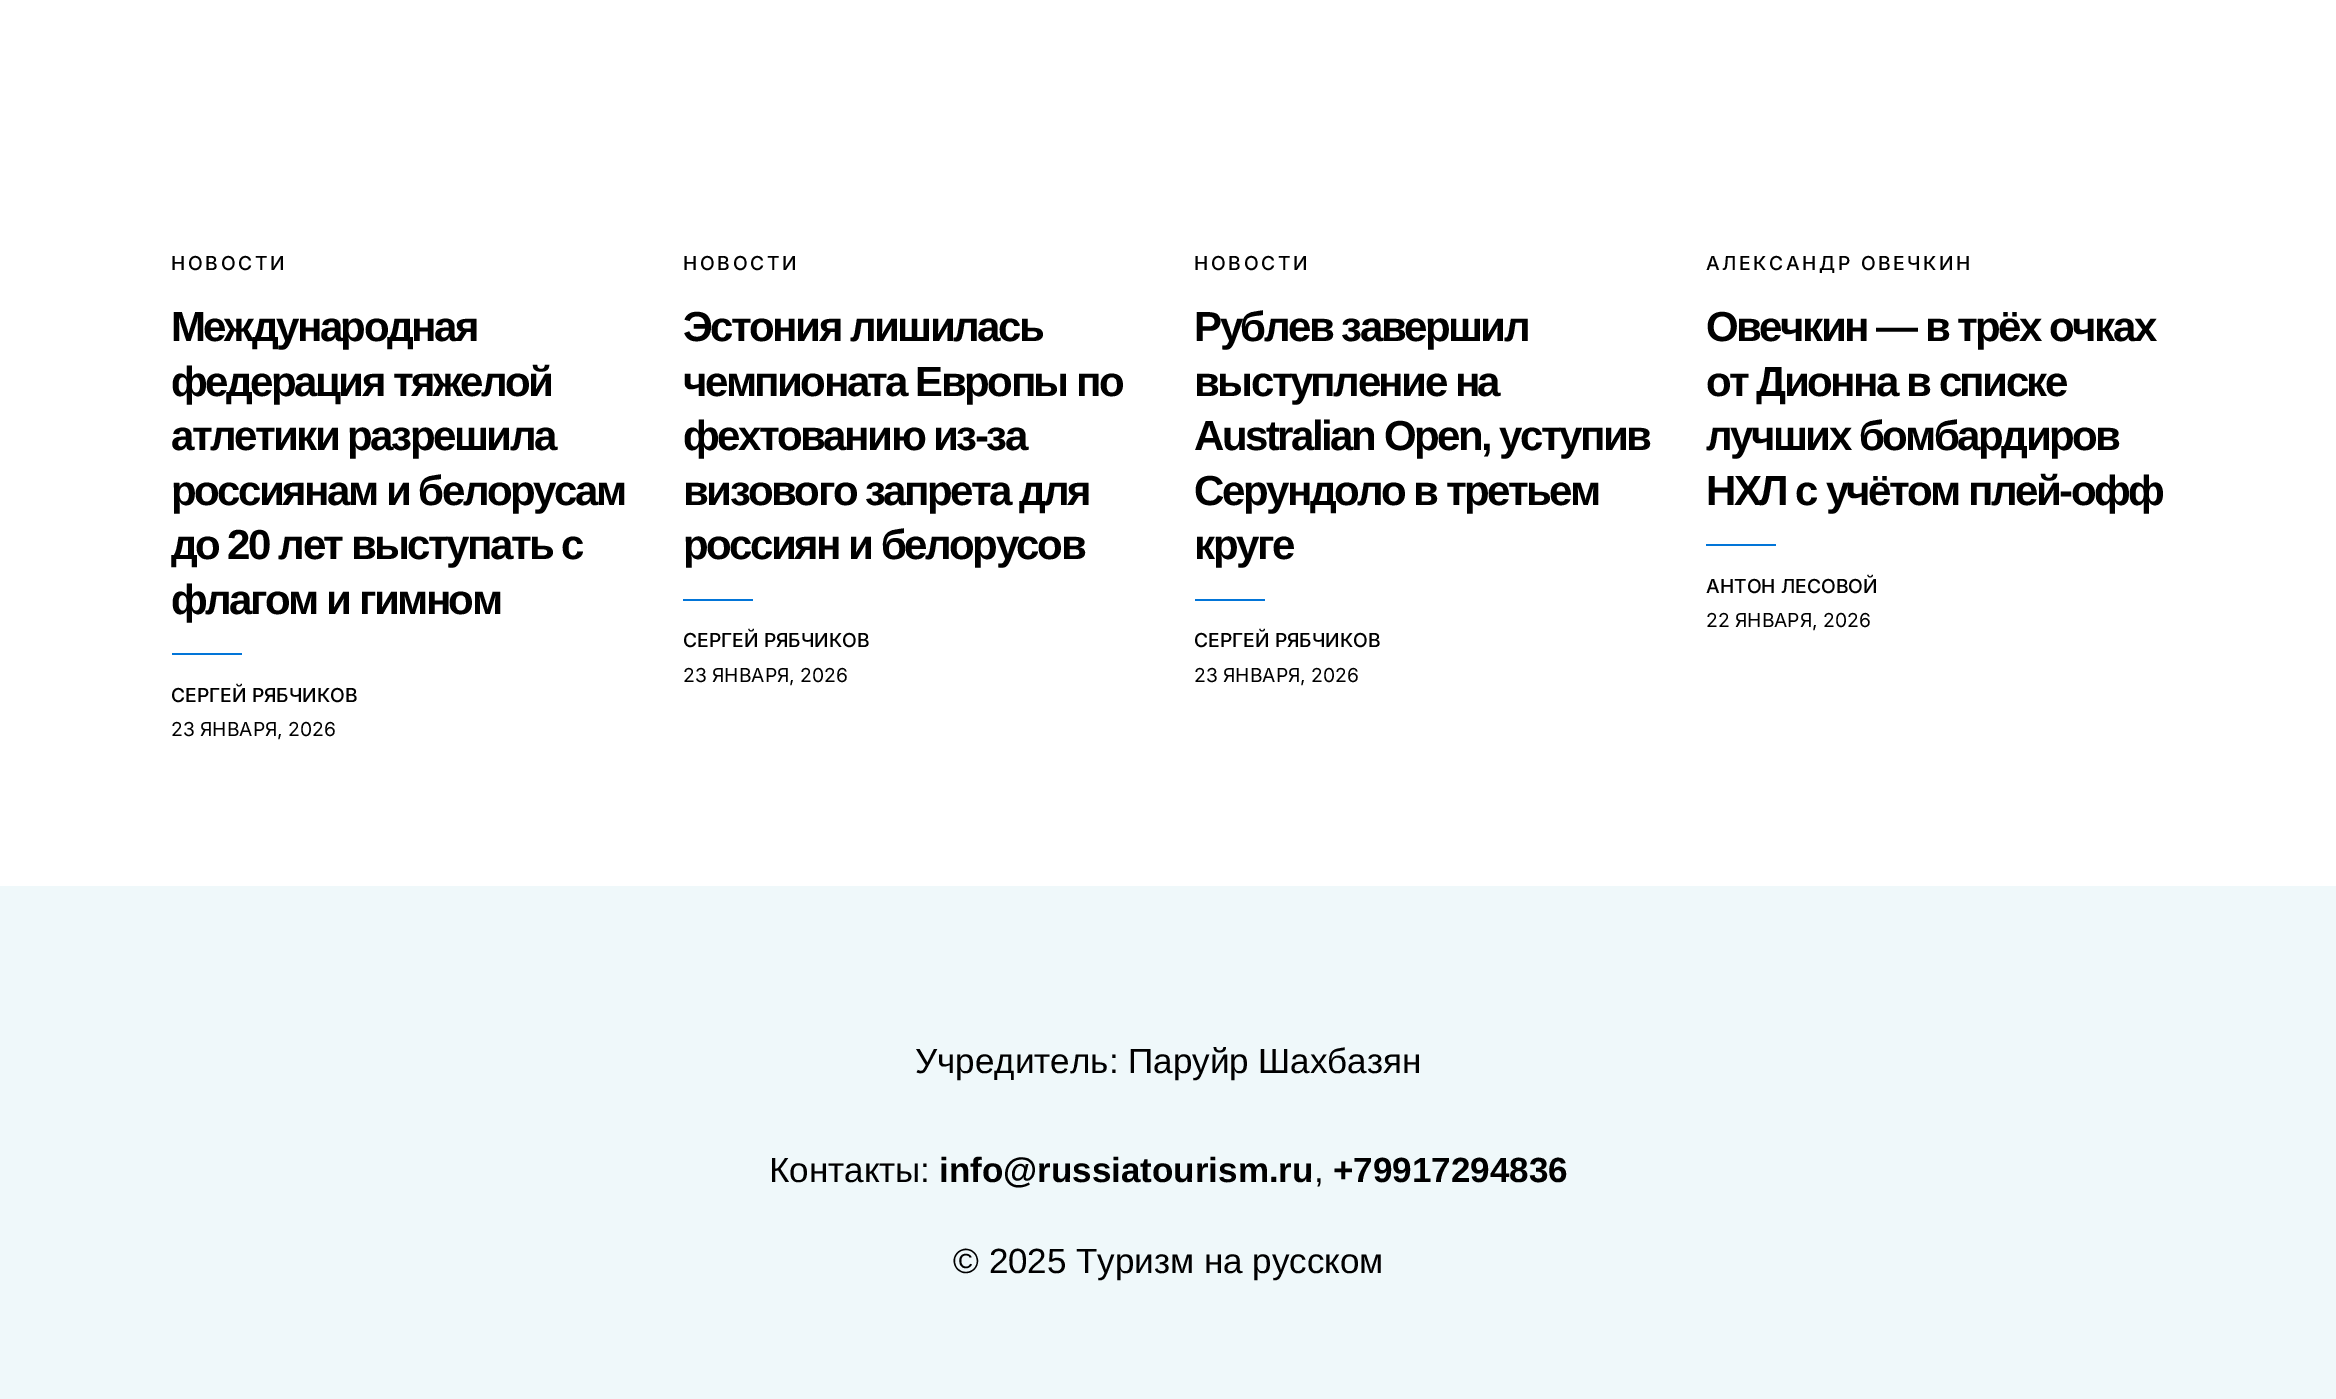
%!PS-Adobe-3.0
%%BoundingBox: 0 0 2336 1399
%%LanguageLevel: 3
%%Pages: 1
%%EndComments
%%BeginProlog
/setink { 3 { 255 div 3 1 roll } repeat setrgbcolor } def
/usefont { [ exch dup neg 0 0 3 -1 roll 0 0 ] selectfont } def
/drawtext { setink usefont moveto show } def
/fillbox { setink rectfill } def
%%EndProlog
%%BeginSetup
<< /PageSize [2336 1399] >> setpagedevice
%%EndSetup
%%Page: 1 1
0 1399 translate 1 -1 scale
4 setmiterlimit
0 0 2336 1399 255 255 255 fillbox
/Inter-Medium 19.25 usefont
0 0 0 setink
171 270 moveto 2.6 0 (НОВОСТИ) ashow
/LiberationSans-Bold 42 usefont
171 341 moveto -2.5 0 (Международная) ashow
171 396 moveto -2.5 0 (федерация тяжелой) ashow
171 450 moveto -2.5 0 (атлетики разрешила) ashow
171 505 moveto -2.5 0 (россиянам и белорусам) ashow
171 559 moveto -2.5 0 (до 20 лет выступать с) ashow
171 614 moveto -2.5 0 (флагом и гимном) ashow
172 653 70 2 2 117 216 fillbox
(СЕРГЕЙ РЯБЧИКОВ) 171 702 /Inter-Medium 19.25 0 0 0 drawtext
(23 ЯНВАРЯ, 2026) 171 736 /Inter-Regular 19.25 0 0 0 drawtext
/Inter-Medium 19.25 usefont
683 270 moveto 2.6 0 (НОВОСТИ) ashow
/LiberationSans-Bold 42 usefont
683 341 moveto -2.5 0 (Эстония лишилась) ashow
683 396 moveto -2.5 0 (чемпионата Европы по) ashow
683 450 moveto -2.5 0 (фехтованию из-за) ashow
683 505 moveto -2.5 0 (визового запрета для) ashow
683 559 moveto -2.5 0 (россиян и белорусов) ashow
683 599 70 2 2 117 216 fillbox
(СЕРГЕЙ РЯБЧИКОВ) 683 647 /Inter-Medium 19.25 0 0 0 drawtext
(23 ЯНВАРЯ, 2026) 683 682 /Inter-Regular 19.25 0 0 0 drawtext
/Inter-Medium 19.25 usefont
1194 270 moveto 2.6 0 (НОВОСТИ) ashow
/LiberationSans-Bold 42 usefont
1194 341 moveto -2.5 0 (Рублев завершил) ashow
1194 396 moveto -2.5 0 (выступление на) ashow
1194 450 moveto -2.5 0 (Australian Open, уступив) ashow
1194 505 moveto -2.5 0 (Серундоло в третьем) ashow
1194 559 moveto -2.5 0 (круге) ashow
1195 599 70 2 2 117 216 fillbox
(СЕРГЕЙ РЯБЧИКОВ) 1194 647 /Inter-Medium 19.25 0 0 0 drawtext
(23 ЯНВАРЯ, 2026) 1194 682 /Inter-Regular 19.25 0 0 0 drawtext
/Inter-Medium 19.25 usefont
1706 270 moveto 2.6 0 (АЛЕКСАНДР ОВЕЧКИН) ashow
/LiberationSans-Bold 42 usefont
1706 341 moveto -2.5 0 (Овечкин — в трёх очках) ashow
1706 396 moveto -2.5 0 (от Дионна в списке) ashow
1706 450 moveto -2.5 0 (лучших бомбардиров) ashow
1706 505 moveto -2.5 0 (НХЛ с учётом плей-офф) ashow
1706 544 70 2 2 117 216 fillbox
(АНТОН ЛЕСОВОЙ) 1706 593 /Inter-Medium 19.25 0 0 0 drawtext
(22 ЯНВАРЯ, 2026) 1706 627 /Inter-Regular 19.25 0 0 0 drawtext
0 886 2336 513 239 248 250 fillbox
(Учредитель: Паруйр Шахбазян) 915 1073 /LiberationSans-Regular 35 0 0 0 drawtext
(Контакты:) 769 1182 /LiberationSans-Regular 35 0 0 0 drawtext
(info@russiatourism.ru) 939 1182 /LiberationSans-Bold 35 0 0 0 drawtext
(,) 1314 1182 /LiberationSans-Regular 35 0 0 0 drawtext
(+79917294836) 1333 1182 /LiberationSans-Bold 35 0 0 0 drawtext
(© 2025 Туризм на русском) 953 1273 /LiberationSans-Regular 35 0 0 0 drawtext
showpage
%%EOF
